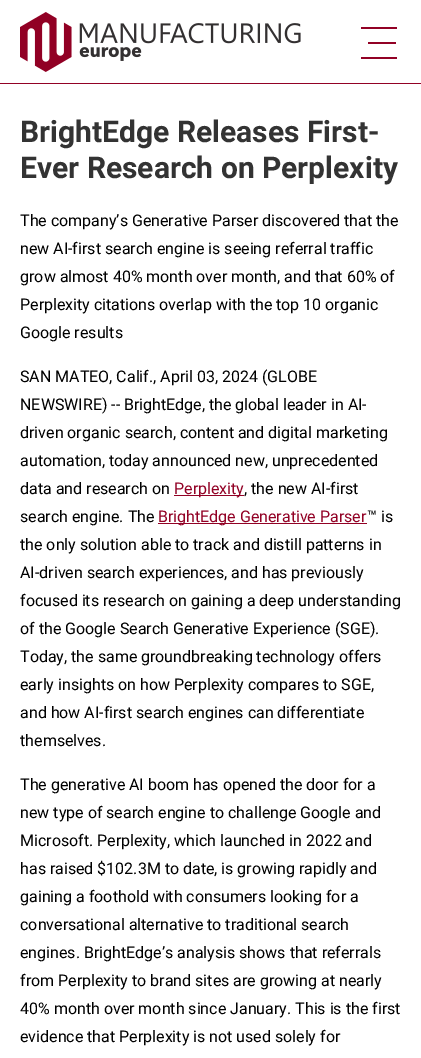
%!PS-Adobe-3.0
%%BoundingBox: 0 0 421 1058
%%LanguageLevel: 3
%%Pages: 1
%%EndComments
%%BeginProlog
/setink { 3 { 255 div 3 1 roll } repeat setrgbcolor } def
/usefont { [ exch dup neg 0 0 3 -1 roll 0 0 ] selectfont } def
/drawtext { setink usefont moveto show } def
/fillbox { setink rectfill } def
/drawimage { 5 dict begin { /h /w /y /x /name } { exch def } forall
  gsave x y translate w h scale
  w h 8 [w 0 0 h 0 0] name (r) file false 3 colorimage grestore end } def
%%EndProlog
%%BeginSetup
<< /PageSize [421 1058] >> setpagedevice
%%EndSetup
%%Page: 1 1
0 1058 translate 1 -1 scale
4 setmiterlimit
0 0 421 1058 255 255 255 fillbox
(assets/img1.rgb) 20 12 281 60 drawimage
361 27 36 2 146 1 37 fillbox
368 42 28 2 146 1 37 fillbox
361 57 36 2 146 1 37 fillbox
0 83 421 1 146 1 37 fillbox
(BrightEdge Releases First-) 20 142 /Roboto-Bold 30 51 51 51 drawtext
(Ever Research on Perplexity) 20 178 /Roboto-Bold 30 51 51 51 drawtext
(The company’s Generative Parser discovered that the) 20 226 /Roboto-Regular 16 0 0 0 drawtext
(new AI-first search engine is seeing referral traffic) 20 254 /Roboto-Regular 16 0 0 0 drawtext
(grow almost 40% month over month, and that 60% of) 20 282 /Roboto-Regular 16 0 0 0 drawtext
(Perplexity citations overlap with the top 10 organic) 20 310 /Roboto-Regular 16 0 0 0 drawtext
(Google results) 20 338 /Roboto-Regular 16 0 0 0 drawtext
(SAN MATEO, Calif., April 03, 2024 \(GLOBE) 20 382 /Roboto-Regular 16 0 0 0 drawtext
(NEWSWIRE\) -- BrightEdge, the global leader in AI-) 20 410 /Roboto-Regular 16 0 0 0 drawtext
(driven organic search, content and digital marketing) 20 438 /Roboto-Regular 16 0 0 0 drawtext
(automation, today announced new, unprecedented) 20 466 /Roboto-Regular 16 0 0 0 drawtext
(data and research on) 20 494 /Roboto-Regular 16 0 0 0 drawtext
174 495 70 1 146 1 37 fillbox
(Perplexity) 174 494 /Roboto-Regular 16 146 1 37 drawtext
(, the new AI-first) 244 494 /Roboto-Regular 16 0 0 0 drawtext
(search engine. The) 20 522 /Roboto-Regular 16 0 0 0 drawtext
158 523 209 1 146 1 37 fillbox
(BrightEdge Generative Parser) 158 522 /Roboto-Regular 16 146 1 37 drawtext
(™ is) 367 522 /Roboto-Regular 16 0 0 0 drawtext
(the only solution able to track and distill patterns in) 20 550 /Roboto-Regular 16 0 0 0 drawtext
(AI-driven search experiences, and has previously) 20 578 /Roboto-Regular 16 0 0 0 drawtext
(focused its research on gaining a deep understanding) 20 606 /Roboto-Regular 16 0 0 0 drawtext
(of the Google Search Generative Experience \(SGE\).) 20 634 /Roboto-Regular 16 0 0 0 drawtext
(Today, the same groundbreaking technology offers) 20 662 /Roboto-Regular 16 0 0 0 drawtext
(early insights on how Perplexity compares to SGE,) 20 690 /Roboto-Regular 16 0 0 0 drawtext
(and how AI-first search engines can differentiate) 20 718 /Roboto-Regular 16 0 0 0 drawtext
(themselves.) 20 746 /Roboto-Regular 16 0 0 0 drawtext
(The generative AI boom has opened the door for a) 20 790 /Roboto-Regular 16 0 0 0 drawtext
(new type of search engine to challenge Google and) 20 818 /Roboto-Regular 16 0 0 0 drawtext
(Microsoft. Perplexity, which launched in 2022 and) 20 846 /Roboto-Regular 16 0 0 0 drawtext
(has raised $102.3M to date, is growing rapidly and) 20 874 /Roboto-Regular 16 0 0 0 drawtext
(gaining a foothold with consumers looking for a) 20 902 /Roboto-Regular 16 0 0 0 drawtext
(conversational alternative to traditional search) 20 930 /Roboto-Regular 16 0 0 0 drawtext
(engines. BrightEdge’s analysis shows that referrals) 20 958 /Roboto-Regular 16 0 0 0 drawtext
(from Perplexity to brand sites are growing at nearly) 20 986 /Roboto-Regular 16 0 0 0 drawtext
(40% month over month since January. This is the first) 20 1014 /Roboto-Regular 16 0 0 0 drawtext
(evidence that Perplexity is not used solely for) 20 1042 /Roboto-Regular 16 0 0 0 drawtext
showpage
%%EOF
